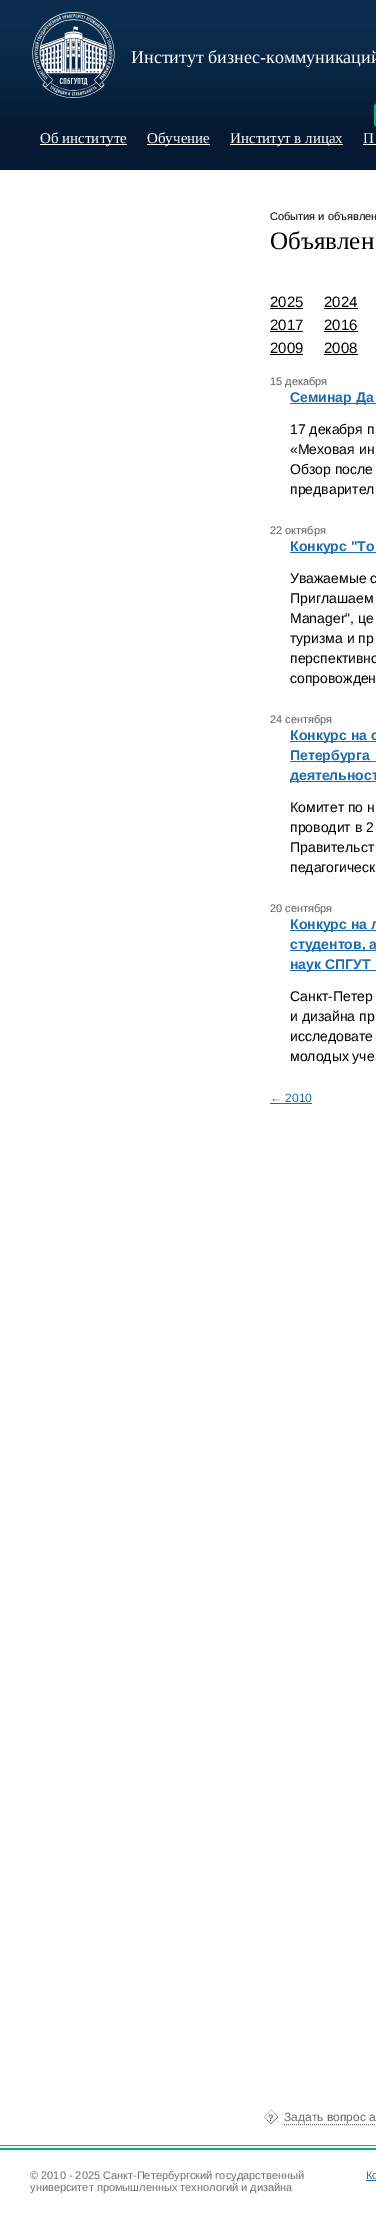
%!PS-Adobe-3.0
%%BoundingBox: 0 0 376 2225
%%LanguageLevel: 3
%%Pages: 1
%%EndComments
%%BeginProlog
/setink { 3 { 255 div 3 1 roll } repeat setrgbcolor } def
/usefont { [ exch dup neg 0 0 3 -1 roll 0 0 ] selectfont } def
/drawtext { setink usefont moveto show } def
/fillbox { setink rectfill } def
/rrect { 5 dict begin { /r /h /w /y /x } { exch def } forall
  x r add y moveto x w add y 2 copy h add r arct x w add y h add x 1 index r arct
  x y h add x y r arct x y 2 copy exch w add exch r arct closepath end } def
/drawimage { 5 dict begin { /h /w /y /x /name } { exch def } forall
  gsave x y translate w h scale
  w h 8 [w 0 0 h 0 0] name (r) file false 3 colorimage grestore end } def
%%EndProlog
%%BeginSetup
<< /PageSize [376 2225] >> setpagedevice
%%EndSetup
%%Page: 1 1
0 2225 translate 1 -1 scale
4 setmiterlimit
0 0 376 2225 255 255 255 fillbox
0 117 376 53 5 25 50 fillbox
(assets/img1.rgb) 0 0 376 117 drawimage
(assets/img2.rgb) 32 12 83 86 drawimage
(Институт бизнес-коммуникаций) 131 63 /LiberationSerif-Regular 18 255 255 255 drawtext
7 180 117 setink
374 103 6 24 4 rrect fill
40 144 87 1 255 255 255 fillbox
(Об институте) 40 143 /LiberationSerif-Regular 15 255 255 255 drawtext
147 144 63 1 255 255 255 fillbox
(Обучение) 147 143 /LiberationSerif-Regular 15 255 255 255 drawtext
230 144 113 1 255 255 255 fillbox
(Институт в лицах) 230 143 /LiberationSerif-Regular 15 255 255 255 drawtext
(П) 363 143 /LiberationSerif-Regular 15 255 255 255 drawtext
363 144 13 1 255 255 255 fillbox
(События и объявлен) 270 220 /LiberationSans-Regular 11 0 0 0 drawtext
(Объявлен) 270 249 /LiberationSerif-Regular 25 0 0 0 drawtext
(2025) 270 307 /LiberationSans-Regular 15 0 0 0 drawtext
270 308 33 1 0 0 0 fillbox
(2024) 324 307 /LiberationSans-Regular 15 0 0 0 drawtext
324 308 34 1 0 0 0 fillbox
(2017) 270 330 /LiberationSans-Regular 15 0 0 0 drawtext
270 331 33 1 0 0 0 fillbox
(2016) 324 330 /LiberationSans-Regular 15 0 0 0 drawtext
324 331 34 1 0 0 0 fillbox
(2009) 270 353 /LiberationSans-Regular 15 0 0 0 drawtext
270 354 33 1 0 0 0 fillbox
(2008) 324 353 /LiberationSans-Regular 15 0 0 0 drawtext
324 354 34 1 0 0 0 fillbox
(15 декабря) 270 385 /LiberationSans-Regular 11 93 93 93 drawtext
290 403 86 1 29 108 174 fillbox
(Семинар Да) 290 402 /LiberationSans-Bold 14 29 108 174 drawtext
(17 декабря п) 290 434 /LiberationSans-Regular 14 0 0 0 drawtext
(«Меховая ин) 290 454 /LiberationSans-Regular 14 0 0 0 drawtext
(Обзор после) 290 474 /LiberationSans-Regular 14 0 0 0 drawtext
(предварител) 290 494 /LiberationSans-Regular 14 0 0 0 drawtext
(22 октября) 270 534 /LiberationSans-Regular 11 93 93 93 drawtext
290 552 86 1 29 108 174 fillbox
(Конкурс "To) 290 551 /LiberationSans-Bold 14 29 108 174 drawtext
(Уважаемые с) 290 583 /LiberationSans-Regular 14 0 0 0 drawtext
(Приглашаем) 290 603 /LiberationSans-Regular 14 0 0 0 drawtext
(Manager", це) 290 623 /LiberationSans-Regular 14 0 0 0 drawtext
(туризма и пр) 290 643 /LiberationSans-Regular 14 0 0 0 drawtext
(перспективно) 290 663 /LiberationSans-Regular 14 0 0 0 drawtext
(сопровожден) 290 683 /LiberationSans-Regular 14 0 0 0 drawtext
(24 сентября) 270 723 /LiberationSans-Regular 11 93 93 93 drawtext
290 741 86 1 29 108 174 fillbox
(Конкурс на с) 290 740 /LiberationSans-Bold 14 29 108 174 drawtext
290 761 86 1 29 108 174 fillbox
(Петербурга) 290 760 /LiberationSans-Bold 14 29 108 174 drawtext
290 781 86 1 29 108 174 fillbox
(деятельност) 290 780 /LiberationSans-Bold 14 29 108 174 drawtext
(Комитет по н) 290 812 /LiberationSans-Regular 14 0 0 0 drawtext
(проводит в 2) 290 832 /LiberationSans-Regular 14 0 0 0 drawtext
(Правительст) 290 852 /LiberationSans-Regular 14 0 0 0 drawtext
(педагогическ) 290 872 /LiberationSans-Regular 14 0 0 0 drawtext
(20 сентября) 270 912 /LiberationSans-Regular 11 93 93 93 drawtext
290 930 86 1 29 108 174 fillbox
(Конкурс на л) 290 929 /LiberationSans-Bold 14 29 108 174 drawtext
290 950 86 1 29 108 174 fillbox
(студентов, а) 290 949 /LiberationSans-Bold 14 29 108 174 drawtext
290 970 86 1 29 108 174 fillbox
(наук СПГУТ) 290 969 /LiberationSans-Bold 14 29 108 174 drawtext
(Санкт-Петер) 290 1001 /LiberationSans-Regular 14 0 0 0 drawtext
(и дизайна пр) 290 1021 /LiberationSans-Regular 14 0 0 0 drawtext
(исследовате) 290 1041 /LiberationSans-Regular 14 0 0 0 drawtext
(молодых уче) 290 1061 /LiberationSans-Regular 14 0 0 0 drawtext
(← 2010) 270 1102 /LiberationSans-Regular 12 29 108 174 drawtext
270 1103 42 1 29 108 174 fillbox
(assets/img3.rgb) 264 2110 14 14 drawimage
(Задать вопрос а) 284 2121 /LiberationSans-Regular 12 109 109 109 drawtext
[1 1] 0 setdash
284 2124.5 moveto 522 2124.5 lineto stroke
(© 2010 - 2025 Санкт-Петербургский государственный) 30 2179 /LiberationSans-Regular 11 115 111 111 drawtext
(университет промышленных технологий и дизайна) 30 2191 /LiberationSans-Regular 11 115 111 111 drawtext
(Ко) 366 2179 /LiberationSans-Regular 11 29 108 174 drawtext
366 2180 10 1 29 108 174 fillbox
0 2145 376 5 7 180 117 fillbox
0 2146 376 2 255 255 255 fillbox
showpage
%%EOF
